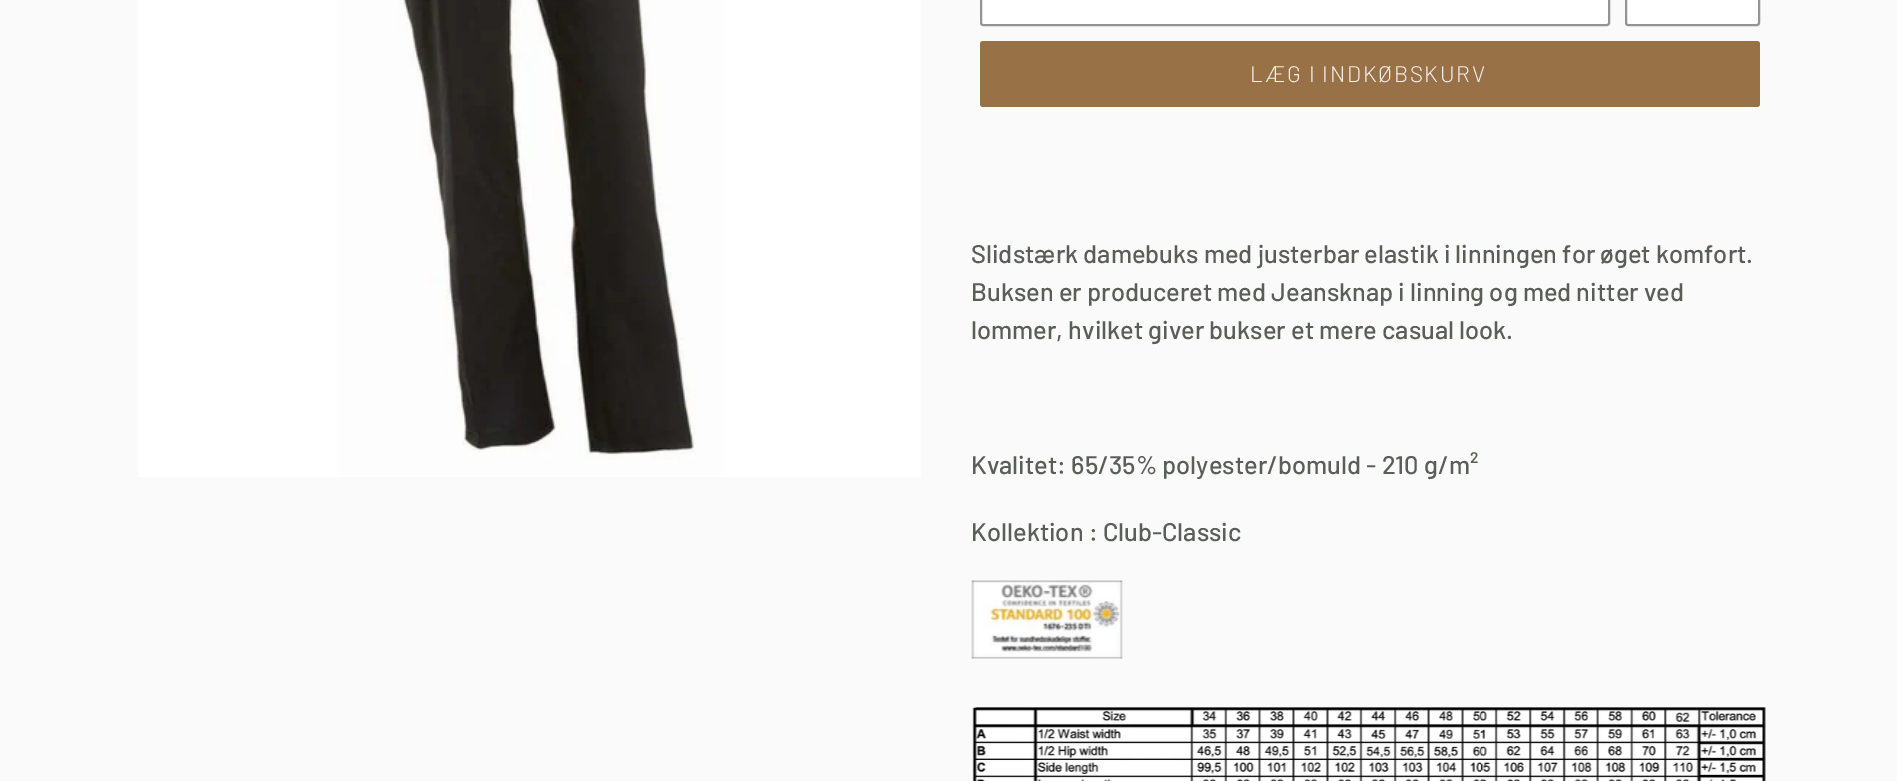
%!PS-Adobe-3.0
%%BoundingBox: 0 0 1897 781
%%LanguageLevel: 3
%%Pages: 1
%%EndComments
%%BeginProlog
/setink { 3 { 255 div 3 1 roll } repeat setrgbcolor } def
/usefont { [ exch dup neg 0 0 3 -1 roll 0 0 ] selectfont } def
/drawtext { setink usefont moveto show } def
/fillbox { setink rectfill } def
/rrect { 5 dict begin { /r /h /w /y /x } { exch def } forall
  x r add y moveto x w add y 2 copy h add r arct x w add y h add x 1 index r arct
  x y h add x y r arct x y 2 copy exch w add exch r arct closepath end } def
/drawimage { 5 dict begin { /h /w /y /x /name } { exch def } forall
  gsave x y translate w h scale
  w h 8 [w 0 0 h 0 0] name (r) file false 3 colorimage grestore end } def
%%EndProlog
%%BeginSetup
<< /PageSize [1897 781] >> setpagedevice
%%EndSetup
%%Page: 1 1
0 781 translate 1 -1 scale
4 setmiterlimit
0 0 1897 781 250 250 250 fillbox
(assets/img1.rgb) 138 0 783 477 drawimage
255 255 255 setink
981 -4 628 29 2 rrect gsave fill grestore
148 148 148 setink
2 setlinewidth
stroke
255 255 255 setink
1626 -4 133 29 2 rrect gsave fill grestore
148 148 148 setink
stroke
153 113 70 setink
980 41 780 66 3 rrect fill
/Barlow-Light 22.5 usefont
242 242 242 setink
1250 82 moveto 1.75 0 (LÆG I INDKØBSKURV) ashow
(Slidstærk damebuks med justerbar elastik i linningen for øget komfort.) 971 263 /Barlow-Medium 25.5 89 94 87 drawtext
(Buksen er produceret med Jeansknap i linning og med nitter ved) 971 301 /Barlow-Medium 25.5 89 94 87 drawtext
(lommer, hvilket giver bukser et mere casual look.) 971 339 /Barlow-Medium 25.5 89 94 87 drawtext
(Kvalitet: 65/35% polyester/bomuld - 210 g/m²) 971 474 /Barlow-Medium 25.5 89 94 87 drawtext
(Kollektion : Club-Classic) 971 541 /Barlow-Medium 25.5 89 94 87 drawtext
(assets/img2.rgb) 971 580 152 79 drawimage
(assets/img3.rgb) 972 707 794 74 drawimage
showpage
%%EOF
